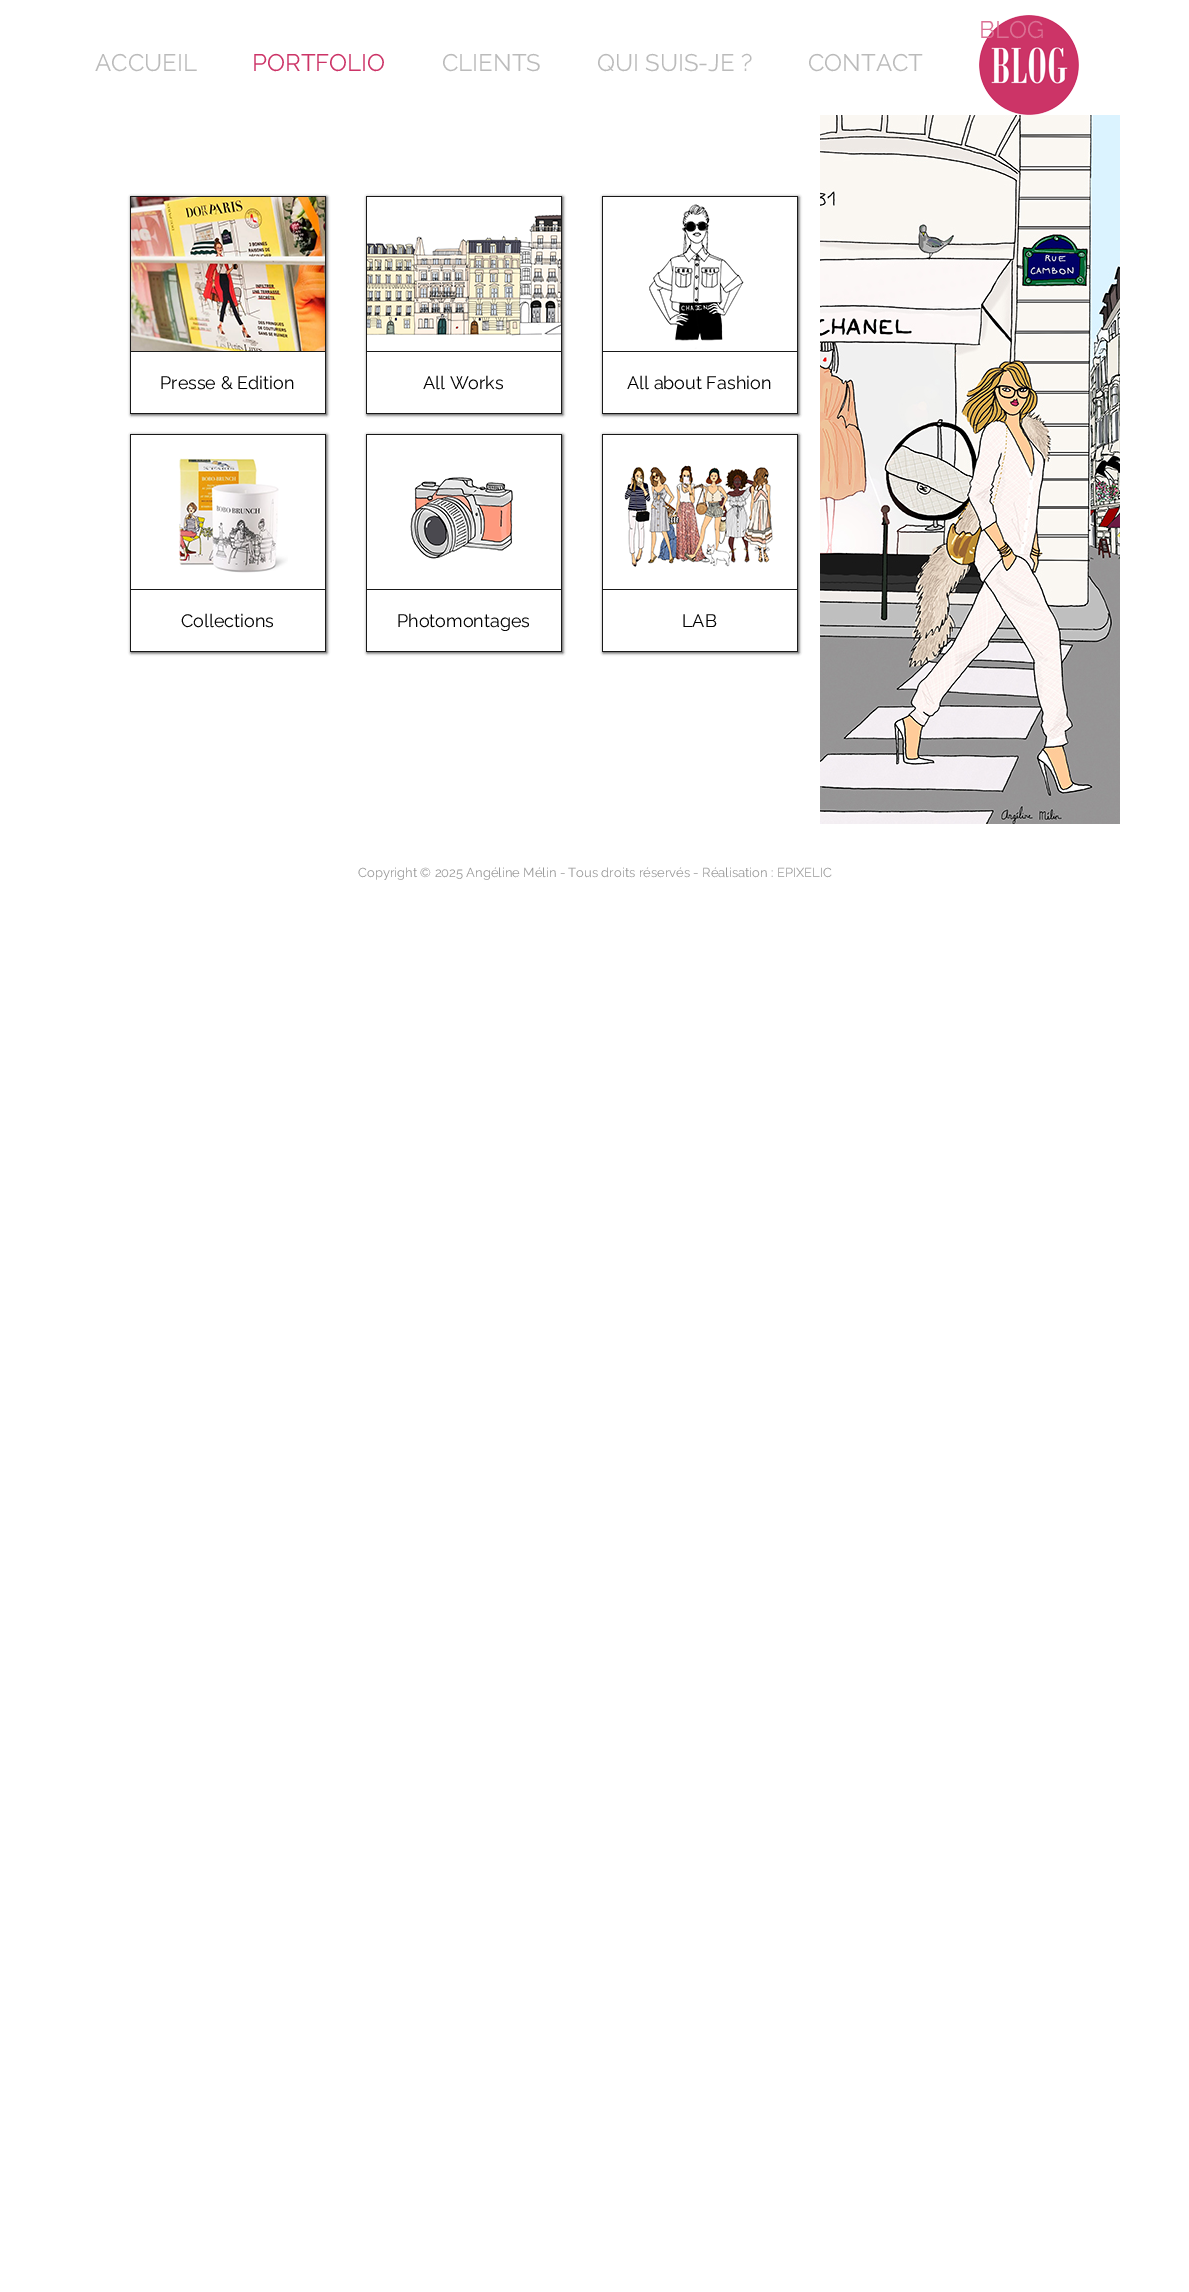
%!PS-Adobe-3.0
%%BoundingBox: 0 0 1189 2292
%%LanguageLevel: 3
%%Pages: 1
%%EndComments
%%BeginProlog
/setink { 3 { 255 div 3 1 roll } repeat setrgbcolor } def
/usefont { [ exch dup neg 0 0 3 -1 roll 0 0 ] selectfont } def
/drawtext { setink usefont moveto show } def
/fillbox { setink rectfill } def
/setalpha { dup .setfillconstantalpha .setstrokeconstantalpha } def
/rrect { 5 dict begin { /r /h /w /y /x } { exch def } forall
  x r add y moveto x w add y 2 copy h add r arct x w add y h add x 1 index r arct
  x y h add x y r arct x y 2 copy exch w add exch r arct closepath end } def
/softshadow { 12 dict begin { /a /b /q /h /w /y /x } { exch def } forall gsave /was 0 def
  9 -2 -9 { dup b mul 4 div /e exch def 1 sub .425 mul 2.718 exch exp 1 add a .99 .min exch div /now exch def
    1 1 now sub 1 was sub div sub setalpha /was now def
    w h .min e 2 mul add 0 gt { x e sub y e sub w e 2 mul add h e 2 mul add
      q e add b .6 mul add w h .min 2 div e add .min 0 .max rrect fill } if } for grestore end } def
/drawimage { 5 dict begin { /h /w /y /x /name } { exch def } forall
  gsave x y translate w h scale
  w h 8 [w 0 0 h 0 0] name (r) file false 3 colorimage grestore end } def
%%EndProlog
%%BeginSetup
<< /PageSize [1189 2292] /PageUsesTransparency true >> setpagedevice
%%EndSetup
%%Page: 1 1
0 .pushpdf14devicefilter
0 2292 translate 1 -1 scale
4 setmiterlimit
0 0 1189 2292 255 255 255 fillbox
(assets/img1.rgb) 979 15 100 100 drawimage
(BLOG) 979 38 /Raleway-Thin 24 219 113 148 drawtext
(ACCUEIL) 95 71 /Raleway-Thin 24 187 187 187 drawtext
(PORTFOLIO) 252 71 /Raleway-Thin 24 204 52 103 drawtext
(CLIENTS) 442 71 /Raleway-Thin 24 187 187 187 drawtext
(QUI SUIS-JE ?) 597 71 /Raleway-Thin 24 187 187 187 drawtext
(CONTACT) 808 71 /Raleway-Thin 24 187 187 187 drawtext
(assets/img2.rgb) 820 115 300 709 drawimage
68 68 68 setink
131 197 196 218 0 1.5 1 softshadow
130 196 196 218 25 25 25 fillbox
(assets/img3.rgb) 131 197 194 154 drawimage
131 352 194 61 255 255 255 fillbox
(Presse & Edition) 160 389 /Raleway-Thin 18 0 0 0 drawtext
68 68 68 setink
367 197 196 218 0 1.5 1 softshadow
366 196 196 218 25 25 25 fillbox
367 197 194 154 255 255 255 fillbox
(assets/img4.rgb) 367 214 194 122 drawimage
367 352 194 61 255 255 255 fillbox
(All Works) 423 389 /Raleway-Thin 18 0 0 0 drawtext
68 68 68 setink
603 197 196 218 0 1.5 1 softshadow
602 196 196 218 25 25 25 fillbox
603 197 194 154 255 255 255 fillbox
(assets/img5.rgb) 649 204 95 145 drawimage
603 352 194 61 255 255 255 fillbox
(All about Fashion) 627 389 /Raleway-Thin 18 0 0 0 drawtext
68 68 68 setink
131 435 196 218 0 1.5 1 softshadow
130 434 196 218 25 25 25 fillbox
131 435 194 154 255 255 255 fillbox
(assets/img6.rgb) 179 458 109 115 drawimage
131 590 194 61 255 255 255 fillbox
(Collections) 181 627 /Raleway-Thin 18 0 0 0 drawtext
68 68 68 setink
367 435 196 218 0 1.5 1 softshadow
366 434 196 218 25 25 25 fillbox
367 435 194 154 255 255 255 fillbox
(assets/img7.rgb) 410 477 103 82 drawimage
367 590 194 61 255 255 255 fillbox
(Photomontages) 397 627 /Raleway-Thin 18 0 0 0 drawtext
68 68 68 setink
603 435 196 218 0 1.5 1 softshadow
602 434 196 218 25 25 25 fillbox
603 435 194 154 255 255 255 fillbox
(assets/img8.rgb) 624 465 149 102 drawimage
603 590 194 61 255 255 255 fillbox
(LAB) 682 627 /Raleway-Thin 18 0 0 0 drawtext
(Copyright © 2025 Angéline Mélin - Tous droits réservés - Réalisation : EPIXELIC) 358 877 /Raleway-Thin 13 153 153 153 drawtext
.poppdf14devicefilter showpage
%%EOF
